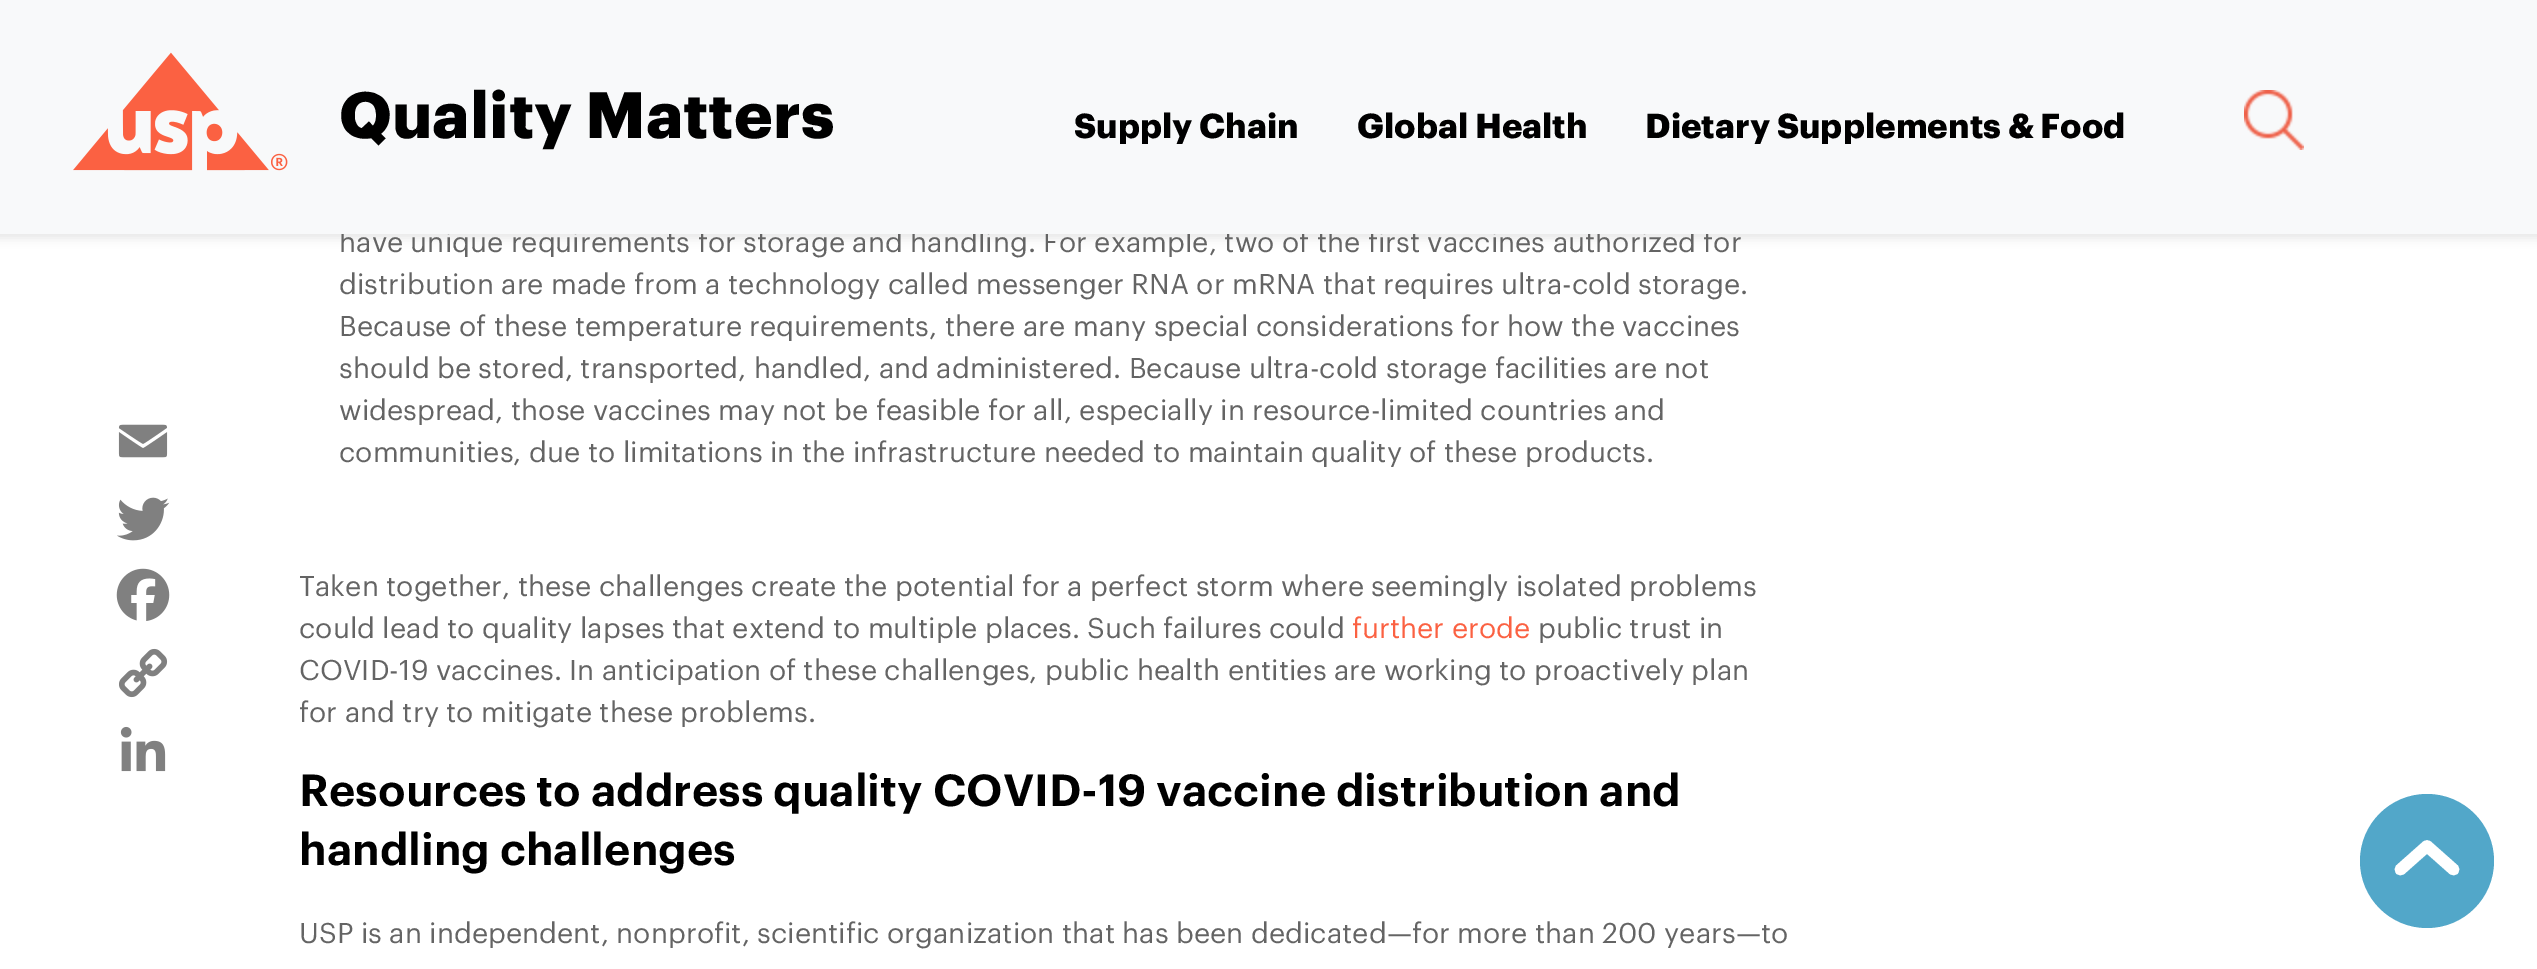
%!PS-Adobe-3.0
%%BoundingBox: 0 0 2537 969
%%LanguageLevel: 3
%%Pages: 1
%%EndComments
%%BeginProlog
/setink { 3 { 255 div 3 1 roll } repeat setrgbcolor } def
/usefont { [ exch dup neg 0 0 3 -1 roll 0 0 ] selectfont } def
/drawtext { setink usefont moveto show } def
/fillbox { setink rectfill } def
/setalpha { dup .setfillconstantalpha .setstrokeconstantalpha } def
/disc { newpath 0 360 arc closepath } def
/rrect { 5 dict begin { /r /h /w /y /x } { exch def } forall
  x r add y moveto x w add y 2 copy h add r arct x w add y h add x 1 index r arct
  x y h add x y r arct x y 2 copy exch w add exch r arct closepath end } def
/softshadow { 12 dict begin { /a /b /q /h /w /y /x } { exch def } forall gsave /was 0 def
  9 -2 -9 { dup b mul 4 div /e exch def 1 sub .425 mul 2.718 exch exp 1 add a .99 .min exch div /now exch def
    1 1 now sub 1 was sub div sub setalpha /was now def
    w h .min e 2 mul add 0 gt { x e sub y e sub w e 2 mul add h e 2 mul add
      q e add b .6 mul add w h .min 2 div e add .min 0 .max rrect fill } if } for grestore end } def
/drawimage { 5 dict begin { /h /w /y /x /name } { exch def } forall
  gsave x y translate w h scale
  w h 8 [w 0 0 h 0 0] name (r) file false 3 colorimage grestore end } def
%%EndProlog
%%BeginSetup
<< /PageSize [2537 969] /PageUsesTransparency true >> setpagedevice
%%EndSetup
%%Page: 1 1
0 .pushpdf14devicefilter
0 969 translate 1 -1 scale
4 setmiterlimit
0 0 2537 969 255 255 255 fillbox
0 0 0 setink
-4 -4 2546 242 0 5 0.1 softshadow
(have unique requirements for storage and handling. For example, two of the first vaccines authorized for) 339 252 /Graphik-Regular 28 100 100 100 drawtext
0 0 2537 234 248 249 250 fillbox
(assets/img1.rgb) 73 52 215 119 drawimage
(Quality Matters) 339 138 /Graphik-Bold 64 0 0 0 drawtext
(Supply Chain) 1074 138 /Graphik-Bold 34 0 0 0 drawtext
(Global Health) 1357 138 /Graphik-Bold 34 0 0 0 drawtext
(Dietary Supplements & Food) 1645 138 /Graphik-Bold 34 0 0 0 drawtext
(assets/img2.rgb) 2244 90 60 60 drawimage
(assets/img3.rgb) 118 424 50 34 drawimage
(assets/img4.rgb) 117 497 53 44 drawimage
(assets/img5.rgb) 116 568 54 53 drawimage
(assets/img6.rgb) 119 648 49 50 drawimage
(assets/img7.rgb) 120 726 46 46 drawimage
(distribution are made from a technology called messenger RNA or mRNA that requires ultra-cold storage.) 339 294 /Graphik-Regular 28 100 100 100 drawtext
(Because of these temperature requirements, there are many special considerations for how the vaccines) 339 336 /Graphik-Regular 28 100 100 100 drawtext
(should be stored, transported, handled, and administered. Because ultra-cold storage facilities are not) 339 378 /Graphik-Regular 28 100 100 100 drawtext
(widespread, those vaccines may not be feasible for all, especially in resource-limited countries and) 339 420 /Graphik-Regular 28 100 100 100 drawtext
(communities, due to limitations in the infrastructure needed to maintain quality of these products.) 339 462 /Graphik-Regular 28 100 100 100 drawtext
(Taken together, these challenges create the potential for a perfect storm where seemingly isolated problems) 299 596 /Graphik-Regular 28 100 100 100 drawtext
(could lead to quality lapses that extend to multiple places. Such failures could) 299 638 /Graphik-Regular 28 100 100 100 drawtext
(further erode) 1352 638 /Graphik-Regular 28 251 97 66 drawtext
(public trust in) 1538 638 /Graphik-Regular 28 100 100 100 drawtext
(COVID-19 vaccines. In anticipation of these challenges, public health entities are working to proactively plan) 299 680 /Graphik-Regular 28 100 100 100 drawtext
(for and try to mitigate these problems.) 299 722 /Graphik-Regular 28 100 100 100 drawtext
(Resources to address quality COVID-19 vaccine distribution and) 299 806 /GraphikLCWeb-SemiBold 44 0 0 0 drawtext
(handling challenges) 299 865 /GraphikLCWeb-SemiBold 44 0 0 0 drawtext
(USP is an independent, nonprofit, scientific organization that has been dedicated—for more than 200 years—to) 299 943 /Graphik-Regular 28 100 100 100 drawtext
82 167 201 setink
2427 861 67 disc fill
255 255 255 setink
11.7 setlinewidth
1 setlinecap
1 setlinejoin
2400.5 869.5 moveto 2427 846 lineto 2453.5 869.5 lineto stroke
.poppdf14devicefilter showpage
%%EOF
